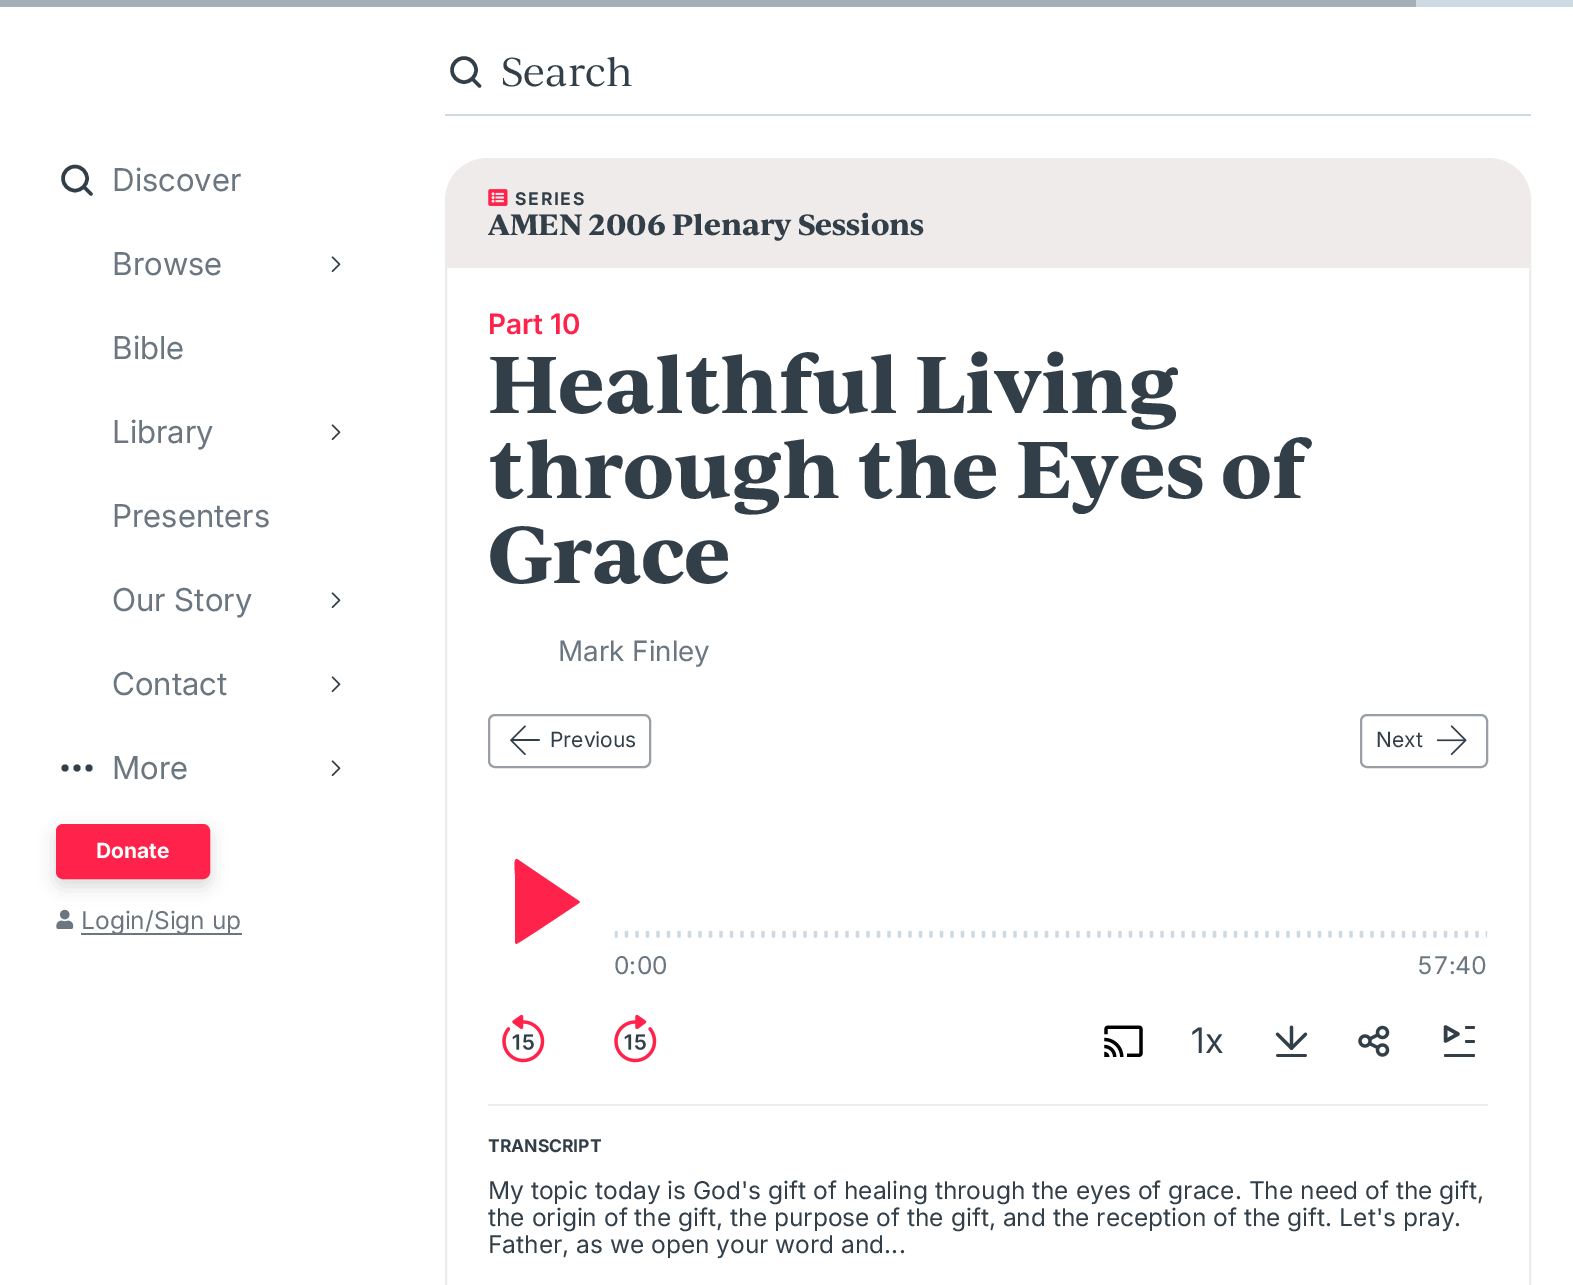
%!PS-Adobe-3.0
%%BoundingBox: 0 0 1573 1285
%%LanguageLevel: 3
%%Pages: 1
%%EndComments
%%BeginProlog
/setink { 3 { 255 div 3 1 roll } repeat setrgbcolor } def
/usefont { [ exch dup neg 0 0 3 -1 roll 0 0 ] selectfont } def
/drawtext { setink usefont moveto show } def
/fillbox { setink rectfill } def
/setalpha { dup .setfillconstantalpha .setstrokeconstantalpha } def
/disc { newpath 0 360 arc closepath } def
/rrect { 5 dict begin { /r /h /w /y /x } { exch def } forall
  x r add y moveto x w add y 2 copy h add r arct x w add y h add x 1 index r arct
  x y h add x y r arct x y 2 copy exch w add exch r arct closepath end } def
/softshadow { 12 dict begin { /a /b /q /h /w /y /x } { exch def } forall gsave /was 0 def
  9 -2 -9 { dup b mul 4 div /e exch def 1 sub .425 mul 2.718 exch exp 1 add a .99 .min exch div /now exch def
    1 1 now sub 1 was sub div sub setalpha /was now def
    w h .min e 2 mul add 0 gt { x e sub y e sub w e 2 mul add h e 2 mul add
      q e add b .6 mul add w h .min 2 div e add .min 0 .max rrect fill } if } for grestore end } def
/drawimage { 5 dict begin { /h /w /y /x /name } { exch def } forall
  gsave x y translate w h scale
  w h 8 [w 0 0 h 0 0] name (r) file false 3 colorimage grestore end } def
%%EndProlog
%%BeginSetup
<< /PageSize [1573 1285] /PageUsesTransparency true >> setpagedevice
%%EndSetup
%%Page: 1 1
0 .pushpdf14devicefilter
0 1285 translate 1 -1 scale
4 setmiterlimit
0 0 1573 1285 255 255 255 fillbox
1416 0 157 7 205 217 227 fillbox
0 0 1416 7 165 175 184 fillbox
50 62 72 setink
3.5 setlinewidth
75 178.5 12 disc stroke
1 setlinecap
84 187 moveto 91 194 lineto stroke
(Discover) 112 191 /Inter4-Regular 31.5 107 118 128 drawtext
(Browse) 112 275 /Inter4-Regular 31.5 107 118 128 drawtext
(assets/img1.rgb) 331 256 10 17 drawimage
(Bible) 112 359 /Inter4-Regular 31.5 107 118 128 drawtext
(Library) 112 443 /Inter4-Regular 31.5 107 118 128 drawtext
(assets/img1.rgb) 331 424 10 17 drawimage
(Presenters) 112 527 /Inter4-Regular 31.5 107 118 128 drawtext
(Our Story) 112 611 /Inter4-Regular 31.5 107 118 128 drawtext
(assets/img1.rgb) 331 592 10 17 drawimage
(Contact) 112 695 /Inter4-Regular 31.5 107 118 128 drawtext
(assets/img1.rgb) 331 676 10 17 drawimage
50 62 72 setink
65 768 3.5 disc fill
77 768 3.5 disc fill
89 768 3.5 disc fill
(More) 112 779 /Inter4-Regular 31.5 107 118 128 drawtext
(assets/img1.rgb) 331 760 10 17 drawimage
0 0 0 setink
56 831 154 55 7 9 0.15 softshadow
255 34 74 setink
57 825 152 53 6 rrect gsave fill grestore
2 setlinewidth
0 setlinecap
stroke
(Donate) 96 858 /Inter-Bold 21 255 255 255 drawtext
(assets/img2.rgb) 56 909 18 20 drawimage
81 933 161 2 107 118 128 fillbox
(Login/Sign up) 81 929 /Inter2-Regular 24.5 107 118 128 drawtext
445 114 1086 2 205 217 227 fillbox
50 62 72 setink
3.5 setlinewidth
464 70 12 disc stroke
1 setlinecap
472.5 79 moveto 479.5 86 lineto stroke
(Search) 501 86 /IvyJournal-Regular 38.5 50 62 72 drawtext
239 235 235 setink
2 setlinewidth
0 setlinecap
446 159 1084 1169 41 rrect stroke
486 159 moveto 1490 159 lineto 1512 159 1530 177 1530 199 curveto 1530 268 lineto 446 268 lineto 446 199 lineto 446 177 464 159 486 159 curveto closepath fill
(assets/img3.rgb) 488 189 20 17 drawimage
/Inter-Bold 17.5 usefont
50 62 72 setink
515 205 moveto 1.75 0 (SERIES) ashow
(AMEN 2006 Plenary Sessions) 488 235 /IvyJournal-Bold 28 50 62 72 drawtext
(Part 10) 488 334 /Inter-SemiBold 28 255 34 74 drawtext
(Healthful Living) 488 413 /IvyJournal-Bold 77 50 62 72 drawtext
(through the Eyes of) 488 498 /IvyJournal-Bold 77 50 62 72 drawtext
(Grace) 488 583 /IvyJournal-Bold 77 50 62 72 drawtext
(Mark Finley) 558 661 /Inter-Regular 28 107 118 128 drawtext
153 159 164 setink
489 715 161 52 6 rrect stroke
(assets/img4.rgb) 510 725 30 30 drawimage
(Previous) 550 747 /Inter2-Regular 21 50 62 72 drawtext
153 159 164 setink
1361 715 126 52 6 rrect stroke
(Next) 1376 747 /Inter2-Regular 21 50 62 72 drawtext
(assets/img5.rgb) 1436 725 31 31 drawimage
255 34 74 setink
515 942 moveto 515 874 lineto 515 871 513 858 517 859 curveto 579 901 lineto 580 901 580 903 579 903 curveto 573 907 518 944 516 944 curveto 516 944 515 943 515 942 curveto fill
(assets/img6.rgb) 614 931 874 7 drawimage
(0:00) 614 974 /Inter2-Regular 24.5 107 118 128 drawtext
(57:40) 1417 974 /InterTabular-Regular 24.5 107 118 128 drawtext
(assets/img7.rgb) 502 1014 43 49 drawimage
(assets/img8.rgb) 614 1014 43 49 drawimage
(assets/img9.rgb) 1104 1025 39 32 drawimage
(1x) 1191 1053 /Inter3-Regular 35 50 62 72 drawtext
(assets/img10.rgb) 1275 1025 33 32 drawimage
(assets/img11.rgb) 1358 1025 32 32 drawimage
1465 1026 10 3 1.5 rrect fill
3.5 setlinewidth
1 setlinejoin
1458 1034 moveto 1445.5 1027 lineto 1445.5 1041 lineto closepath stroke
1465 1040 10 3 1.5 rrect fill
1444 1054 31 3 1.5 rrect fill
488 1104 1000 2 239 235 235 fillbox
(TRANSCRIPT) 488 1152 /Inter-Bold 17.5 50 62 72 drawtext
(My topic today is God's gift of healing through the eyes of grace. The need of the gift,) 488 1199 /Inter2-Regular 24.5 50 62 72 drawtext
(the origin of the gift, the purpose of the gift, and the reception of the gift. Let's pray.) 488 1226 /Inter2-Regular 24.5 50 62 72 drawtext
(Father, as we open your word and...) 488 1253 /Inter2-Regular 24.5 50 62 72 drawtext
.poppdf14devicefilter showpage
%%EOF
